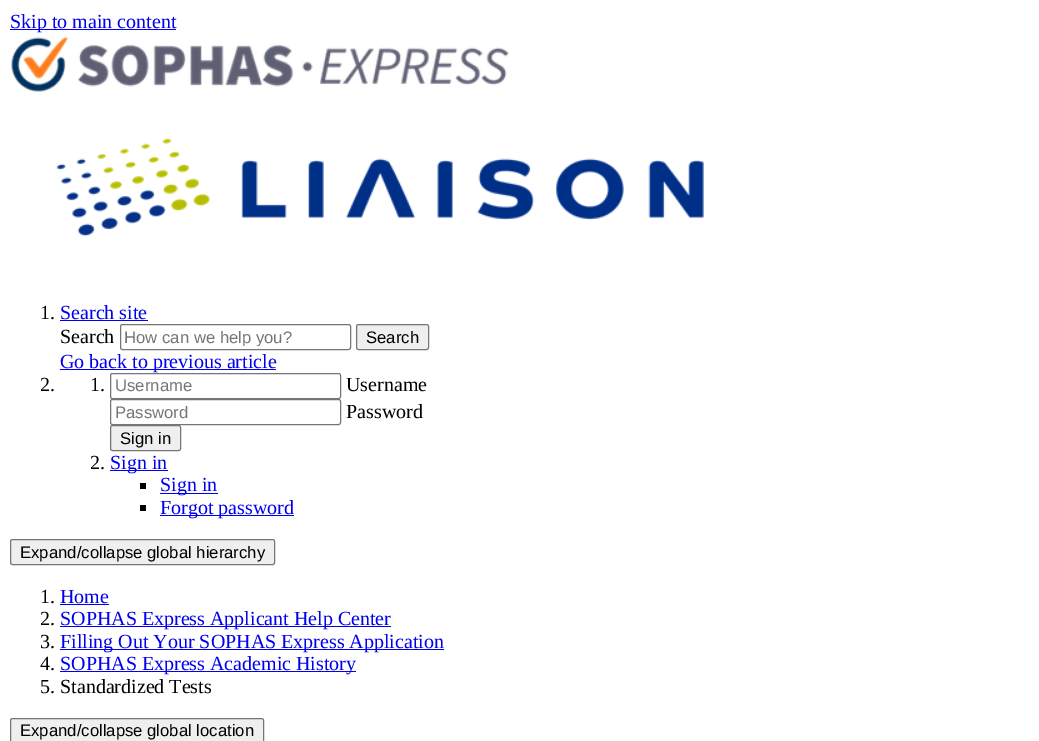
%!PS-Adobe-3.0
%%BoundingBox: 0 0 1039 741
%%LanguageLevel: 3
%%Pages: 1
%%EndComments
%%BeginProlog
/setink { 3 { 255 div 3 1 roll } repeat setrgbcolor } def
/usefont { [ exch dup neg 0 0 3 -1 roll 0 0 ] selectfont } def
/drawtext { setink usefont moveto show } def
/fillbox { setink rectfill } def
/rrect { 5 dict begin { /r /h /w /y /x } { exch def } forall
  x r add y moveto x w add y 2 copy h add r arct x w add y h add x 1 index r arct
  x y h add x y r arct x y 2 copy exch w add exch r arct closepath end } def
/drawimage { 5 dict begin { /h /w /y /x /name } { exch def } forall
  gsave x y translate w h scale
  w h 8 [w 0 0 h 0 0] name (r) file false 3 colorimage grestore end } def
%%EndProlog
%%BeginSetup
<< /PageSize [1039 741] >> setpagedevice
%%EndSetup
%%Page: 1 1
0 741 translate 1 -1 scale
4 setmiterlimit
0 0 1039 741 255 255 255 fillbox
10 29 166 1 0 0 238 fillbox
(Skip to main content) 10 28 /LiberationSerif-Regular 20 0 0 238 drawtext
(assets/img1.rgb) 11 37 498 55 drawimage
(assets/img2.rgb) 56 138 648 99 drawimage
(1.) 40 319 /LiberationSerif-Regular 20 0 0 0 drawtext
(Search site) 60 319 /LiberationSerif-Regular 20 0 0 238 drawtext
60 320 88 1 0 0 238 fillbox
(Search) 60 343 /LiberationSerif-Regular 20 0 0 0 drawtext
118 118 118 setink
120.5 324.5 230 25 2 rrect stroke
gsave
125 328 205 18 rectclip
(How can we help you?) 124 343 /LiberationSans-Regular 16.7 117 117 117 drawtext
grestore
239 239 239 setink
356.5 324.5 72 25 2 rrect gsave fill grestore
118 118 118 setink
stroke
(Search) 366 343 /LiberationSans-Regular 16.7 0 0 0 drawtext
60 369 216 1 0 0 238 fillbox
(Go back to previous article) 60 368 /LiberationSerif-Regular 20 0 0 238 drawtext
(2.) 40 391 /LiberationSerif-Regular 20 0 0 0 drawtext
(1.) 90 391 /LiberationSerif-Regular 20 0 0 0 drawtext
118 118 118 setink
110.5 373.5 230 25 2 rrect stroke
(Username) 115 391 /LiberationSans-Regular 16.7 117 117 117 drawtext
(Username) 346 391 /LiberationSerif-Regular 20 0 0 0 drawtext
118 118 118 setink
110.5 399.5 230 25 2 rrect stroke
(Password) 115 418 /LiberationSans-Regular 16.7 117 117 117 drawtext
(Password) 346 418 /LiberationSerif-Regular 20 0 0 0 drawtext
239 239 239 setink
110.5 425.5 70 25 2 rrect gsave fill grestore
118 118 118 setink
stroke
(Sign in) 120 444 /LiberationSans-Regular 16.7 0 0 0 drawtext
(2.) 90 469 /LiberationSerif-Regular 20 0 0 0 drawtext
110 470 58 1 0 0 238 fillbox
(Sign in) 110 469 /LiberationSerif-Regular 20 0 0 238 drawtext
140 483 6 6 0 0 0 fillbox
160 493 58 1 0 0 238 fillbox
(Sign in) 160 491 /LiberationSerif-Regular 20 0 0 238 drawtext
140 505 6 6 0 0 0 fillbox
160 515 134 1 0 0 238 fillbox
(Forgot password) 160 514 /LiberationSerif-Regular 20 0 0 238 drawtext
239 239 239 setink
10.5 539.5 264 25 2 rrect gsave fill grestore
118 118 118 setink
stroke
(Expand/collapse global hierarchy) 20 558 /LiberationSans-Regular 16.7 0 0 0 drawtext
(1.) 40 603 /LiberationSerif-Regular 20 0 0 0 drawtext
(Home) 60 603 /LiberationSerif-Regular 20 0 0 238 drawtext
60 604 49 1 0 0 238 fillbox
(2.) 40 625 /LiberationSerif-Regular 20 0 0 0 drawtext
60 626 331 1 0 0 238 fillbox
(SOPHAS Express Applicant Help Center) 60 625 /LiberationSerif-Regular 20 0 0 238 drawtext
(3.) 40 648 /LiberationSerif-Regular 20 0 0 0 drawtext
60 649 384 1 0 0 238 fillbox
(Filling Out Your SOPHAS Express Application) 60 648 /LiberationSerif-Regular 20 0 0 238 drawtext
(4.) 40 670 /LiberationSerif-Regular 20 0 0 0 drawtext
60 671 296 1 0 0 238 fillbox
(SOPHAS Express Academic History) 60 670 /LiberationSerif-Regular 20 0 0 238 drawtext
(5. Standardized Tests) 40 693 /LiberationSerif-Regular 20 0 0 0 drawtext
239 239 239 setink
10.5 718.5 253 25 2 rrect gsave fill grestore
118 118 118 setink
stroke
(Expand/collapse global location) 20 736 /LiberationSans-Regular 16.7 0 0 0 drawtext
showpage
%%EOF
